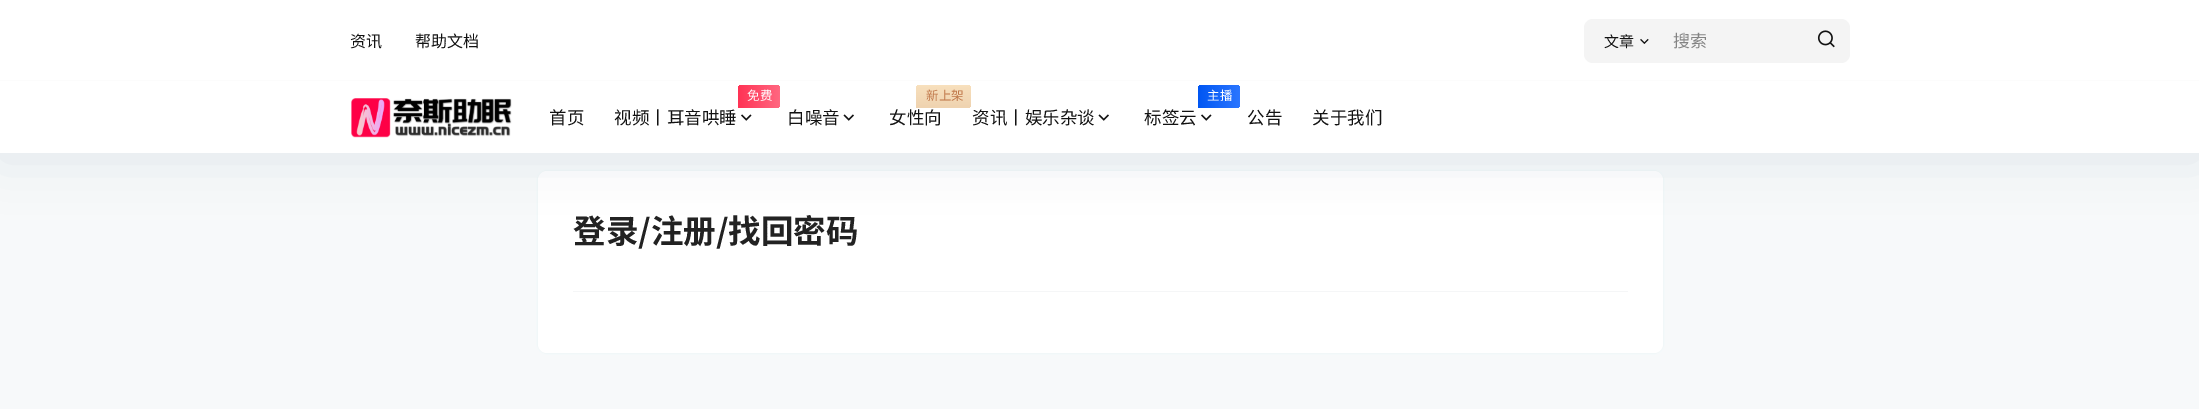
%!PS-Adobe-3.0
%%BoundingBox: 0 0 2199 409
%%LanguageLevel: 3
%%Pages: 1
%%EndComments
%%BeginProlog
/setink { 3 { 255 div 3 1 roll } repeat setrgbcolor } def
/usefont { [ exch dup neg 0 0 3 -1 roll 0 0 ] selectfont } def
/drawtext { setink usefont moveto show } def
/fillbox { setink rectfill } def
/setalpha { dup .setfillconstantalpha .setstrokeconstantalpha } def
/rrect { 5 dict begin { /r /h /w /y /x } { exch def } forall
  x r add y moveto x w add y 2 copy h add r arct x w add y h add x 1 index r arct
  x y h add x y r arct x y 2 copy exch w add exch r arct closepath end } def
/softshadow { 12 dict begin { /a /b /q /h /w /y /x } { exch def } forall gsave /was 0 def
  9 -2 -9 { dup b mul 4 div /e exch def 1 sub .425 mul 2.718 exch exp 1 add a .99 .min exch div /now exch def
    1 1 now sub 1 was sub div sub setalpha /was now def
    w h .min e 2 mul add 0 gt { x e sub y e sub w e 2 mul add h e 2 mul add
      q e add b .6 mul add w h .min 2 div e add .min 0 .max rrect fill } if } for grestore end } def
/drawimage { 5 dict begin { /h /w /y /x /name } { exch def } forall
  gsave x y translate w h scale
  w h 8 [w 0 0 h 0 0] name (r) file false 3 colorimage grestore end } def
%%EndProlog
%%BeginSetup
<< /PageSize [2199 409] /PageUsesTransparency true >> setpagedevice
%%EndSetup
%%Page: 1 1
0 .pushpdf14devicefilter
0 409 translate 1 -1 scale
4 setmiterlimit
0 0 2199 409 247 249 250 fillbox
98 124 153 setink
538 171 1125 182 9 1 0.1 softshadow
255 255 255 setink
538 171 1125 182 9 rrect fill
17 58 93 setink
0 6 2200 153 0 25 0.1 softshadow
0 0 2199 80 255 255 255 fillbox
(资讯) 350 47 /NotoSansCJKSC-Regular 16 18 18 18 drawtext
(帮助文档) 415 47 /NotoSansCJKSC-Regular 16 18 18 18 drawtext
244 244 244 setink
1584 19 266 44 9 rrect fill
(文章) 1604 47 /NotoSansCJKSC-Regular 15 18 18 18 drawtext
(assets/img1.rgb) 1640 38 9 6 drawimage
(搜索) 1673 47 /NotoSansCJKSC-Regular 17 131 131 131 drawtext
(assets/img2.rgb) 1817 30 18 18 drawimage
0 81 2199 72 255 255 255 fillbox
0 80 2199 1 252 252 252 fillbox
(assets/img3.rgb) 351 98 161 40 drawimage
(首页) 549 124 /NotoSansCJKSC-Regular 17.5 18 18 18 drawtext
gsave 743 85 moveto 775 85 lineto 778 85 780 87 780 90 curveto 780 103 lineto 780 106 778 108 775 108 curveto 738 108 lineto 738 90 lineto 738 87 740 85 743 85 curveto closepath clip newpath
<< /ShadingType 2 /ColorSpace /DeviceRGB /Coords [738 96 780 96] /Extend [true true] /Function << /FunctionType 2 /Domain [0 1] /C0 [1 0.2 0.333] /C1 [1 0.404 0.502] /N 1 >> >> shfill grestore
(免费) 747 100 /NotoSansCJKSC-Regular 12.5 255 255 255 drawtext
(视频丨耳音哄睡) 614 124 /NotoSansCJKSC-Regular 17.5 18 18 18 drawtext
(assets/img4.rgb) 741 114 11 7 drawimage
(白噪音) 787 124 /NotoSansCJKSC-Regular 17.5 18 18 18 drawtext
(assets/img5.rgb) 843 114 11 7 drawimage
gsave 921 85 moveto 966 85 lineto 969 85 971 87 971 90 curveto 971 103 lineto 971 106 969 108 966 108 curveto 916 108 lineto 916 90 lineto 916 87 918 85 921 85 curveto closepath clip newpath
<< /ShadingType 2 /ColorSpace /DeviceRGB /Coords [944 107 944 84] /Extend [true true] /Function << /FunctionType 2 /Domain [0 1] /C0 [0.937 0.827 0.69] /C1 [0.976 0.882 0.745] /N 1 >> >> shfill grestore
(新上架) 926 100 /NotoSansCJKSC-Regular 12.5 191 118 72 drawtext
(女性向) 889 124 /NotoSansCJKSC-Regular 17.5 18 18 18 drawtext
(资讯丨娱乐杂谈) 972 124 /NotoSansCJKSC-Regular 17.5 18 18 18 drawtext
(assets/img5.rgb) 1098 114 11 7 drawimage
gsave 1203 85 moveto 1235 85 lineto 1238 85 1240 87 1240 90 curveto 1240 103 lineto 1240 106 1238 108 1235 108 curveto 1198 108 lineto 1198 90 lineto 1198 87 1200 85 1203 85 curveto closepath clip newpath
<< /ShadingType 2 /ColorSpace /DeviceRGB /Coords [1198 96 1240 96] /Extend [true true] /Function << /FunctionType 2 /Domain [0 1] /C0 [0 0.337 0.953] /C1 [0.169 0.463 1] /N 1 >> >> shfill grestore
(主播) 1207 100 /NotoSansCJKSC-Regular 12.5 255 255 255 drawtext
(标签云) 1144 124 /NotoSansCJKSC-Regular 17.5 18 18 18 drawtext
(assets/img4.rgb) 1201 114 11 7 drawimage
(公告) 1247 124 /NotoSansCJKSC-Regular 17.5 18 18 18 drawtext
(关于我们) 1312 124 /NotoSansCJKSC-Regular 17.5 18 18 18 drawtext
573 291 1055 1 245 246 247 fillbox
(登录/注册/找回密码) 573 243 /NotoSansCJKSC-Bold 32.5 34 34 34 drawtext
.poppdf14devicefilter showpage
%%EOF
